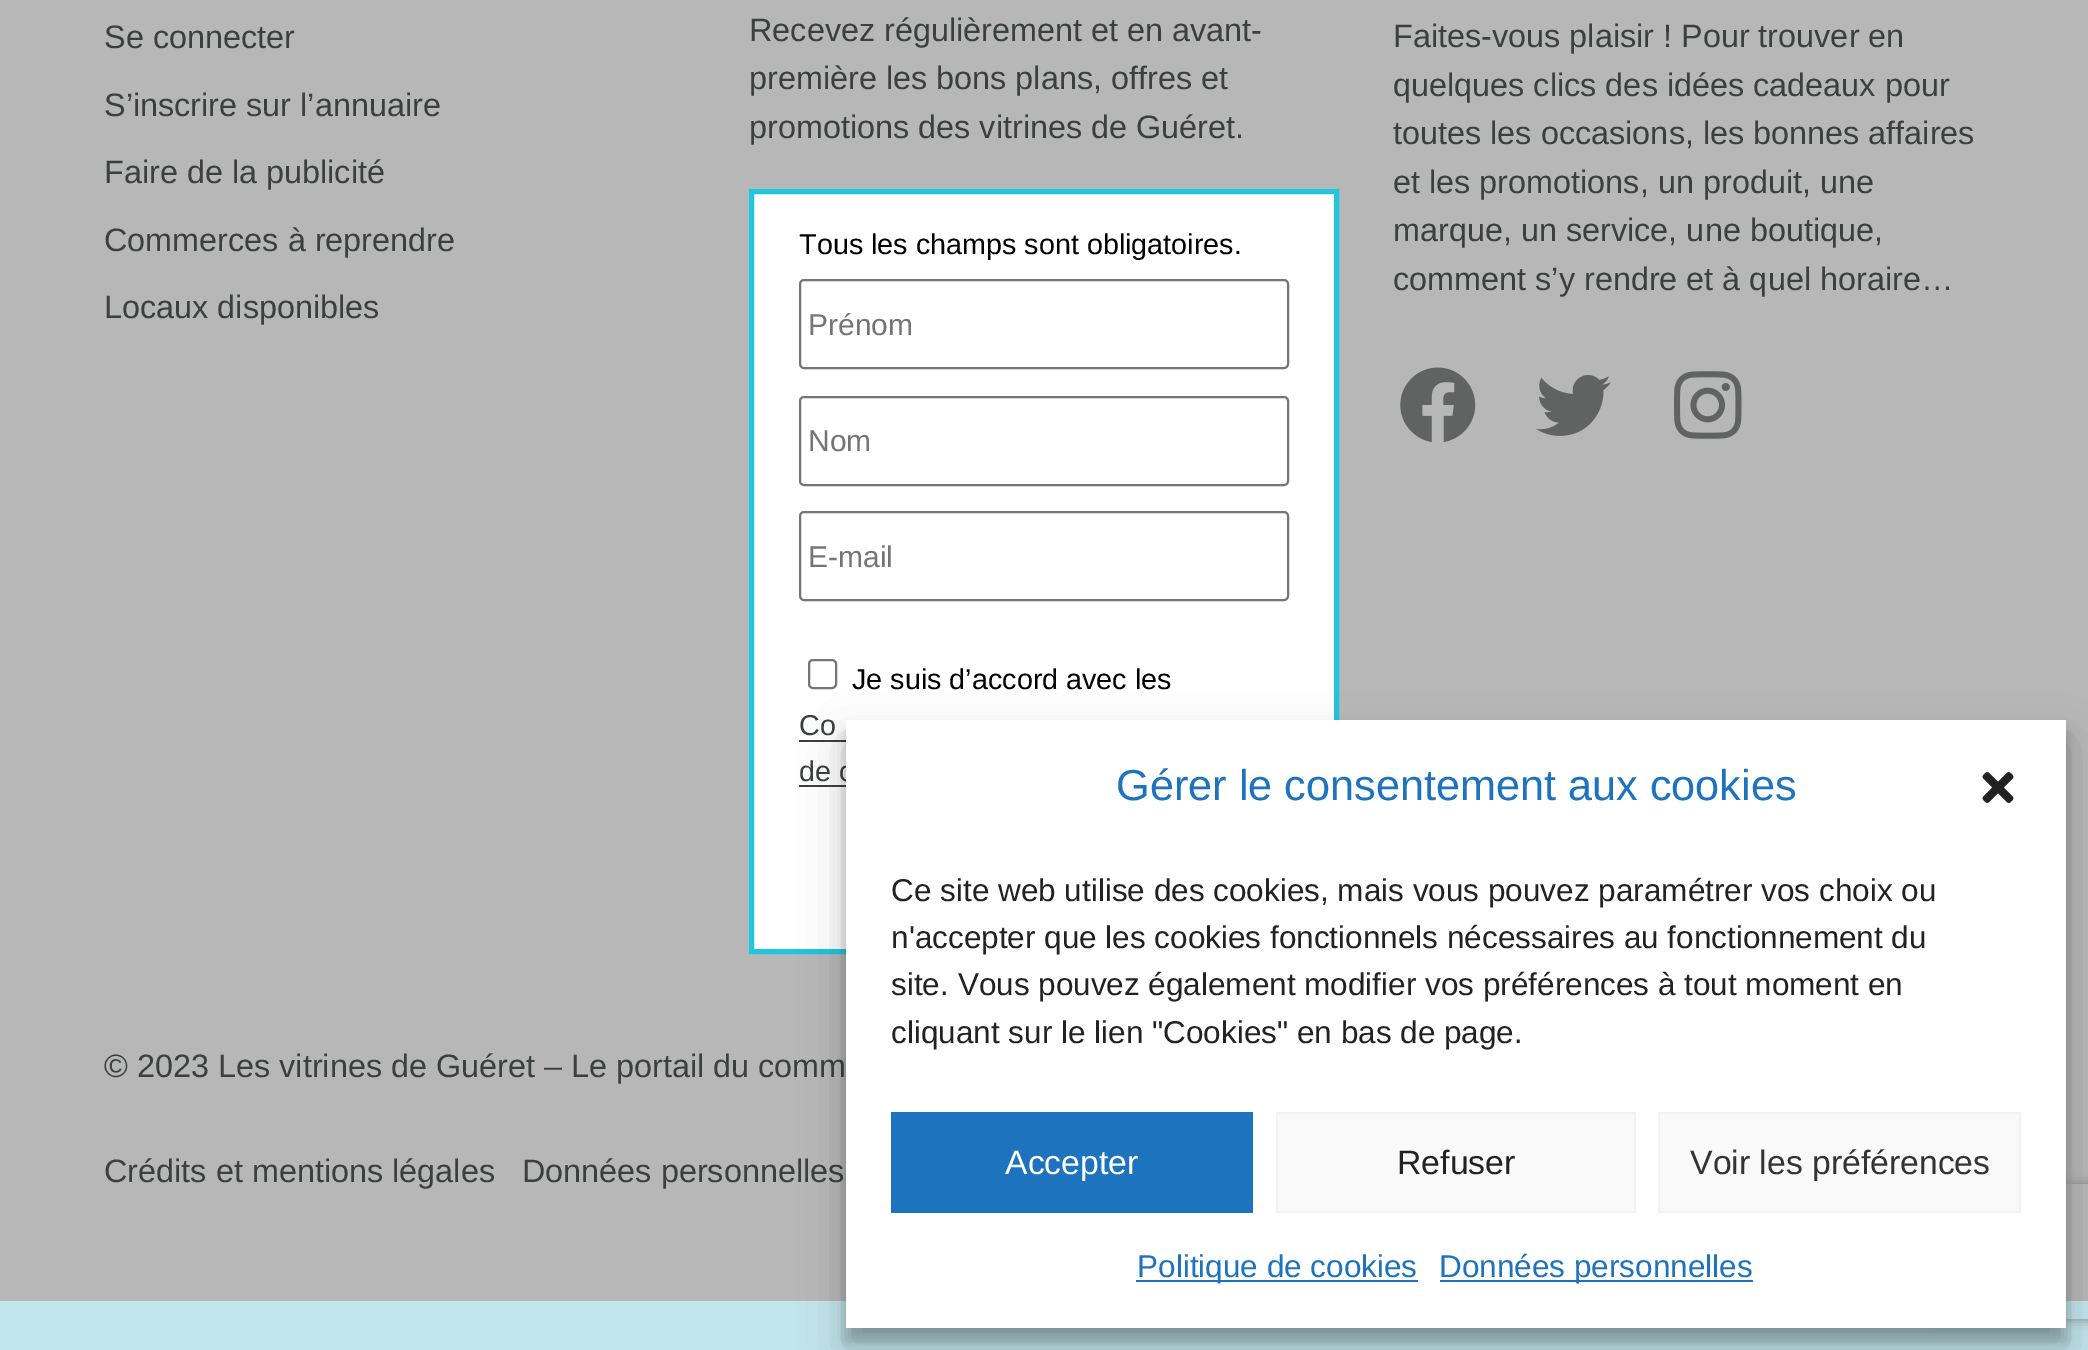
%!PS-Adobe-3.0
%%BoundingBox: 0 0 2088 1350
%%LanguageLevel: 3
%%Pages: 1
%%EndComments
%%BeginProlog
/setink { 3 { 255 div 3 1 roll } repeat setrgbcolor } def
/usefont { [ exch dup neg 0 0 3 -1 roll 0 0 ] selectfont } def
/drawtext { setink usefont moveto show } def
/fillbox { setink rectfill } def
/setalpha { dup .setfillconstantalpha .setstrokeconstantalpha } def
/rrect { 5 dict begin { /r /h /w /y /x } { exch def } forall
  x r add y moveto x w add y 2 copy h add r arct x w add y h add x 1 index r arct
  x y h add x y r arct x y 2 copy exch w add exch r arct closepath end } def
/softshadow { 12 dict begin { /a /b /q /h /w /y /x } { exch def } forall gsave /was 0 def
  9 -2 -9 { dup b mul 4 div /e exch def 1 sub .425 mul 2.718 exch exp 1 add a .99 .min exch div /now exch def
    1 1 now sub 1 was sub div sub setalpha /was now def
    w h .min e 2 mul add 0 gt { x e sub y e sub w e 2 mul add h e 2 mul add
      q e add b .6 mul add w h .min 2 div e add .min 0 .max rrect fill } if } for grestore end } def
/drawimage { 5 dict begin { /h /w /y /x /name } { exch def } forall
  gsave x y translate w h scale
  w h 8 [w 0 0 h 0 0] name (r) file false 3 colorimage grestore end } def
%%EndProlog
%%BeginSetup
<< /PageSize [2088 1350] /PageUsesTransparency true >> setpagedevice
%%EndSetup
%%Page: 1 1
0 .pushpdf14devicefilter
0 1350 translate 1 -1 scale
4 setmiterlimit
0 0 2088 1350 193 230 236 fillbox
0 0 2088 1301 183 183 183 fillbox
(Se connecter) 104 48 /LiberationSans-Regular 32.4 60 63 63 drawtext
(S’inscrire sur l’annuaire) 104 116 /LiberationSans-Regular 32.4 60 63 63 drawtext
(Faire de la publicité) 104 183 /LiberationSans-Regular 32.4 60 63 63 drawtext
(Commerces à reprendre) 104 251 /LiberationSans-Regular 32.4 60 63 63 drawtext
(Locaux disponibles) 104 318 /LiberationSans-Regular 32.4 60 63 63 drawtext
(Recevez régulièrement et en avant-) 749 41 /LiberationSans-Regular 32.4 60 63 63 drawtext
(première les bons plans, offres et) 749 89 /LiberationSans-Regular 32.4 60 63 63 drawtext
(promotions des vitrines de Guéret.) 749 138 /LiberationSans-Regular 32.4 60 63 63 drawtext
255 255 255 setink
751.5 191.5 moveto 1336.5 191.5 lineto 1336.5 951.5 lineto 751.5 951.5 lineto closepath gsave fill grestore
31 198 222 setink
5 setlinewidth
stroke
(Tous les champs sont obligatoires.) 799 254 /LiberationSans-Regular 28.75 0 0 0 drawtext
118 118 118 setink
2 setlinewidth
800 280 488 88 4 rrect stroke
(Prénom) 808 335 /LiberationSans-Regular 30 117 117 117 drawtext
118 118 118 setink
800 397 488 88 4 rrect stroke
(Nom) 808 451 /LiberationSans-Regular 30 117 117 117 drawtext
118 118 118 setink
800 512 488 88 4 rrect stroke
(E-mail) 808 567 /LiberationSans-Regular 30 117 117 117 drawtext
118 118 118 setink
809 660 27 28 4 rrect stroke
(Je suis d’accord avec les) 852 689 /LiberationSans-Regular 28.75 0 0 0 drawtext
(Co) 799 735 /LiberationSans-Regular 28.75 60 63 63 drawtext
799 740 47 2 60 63 63 fillbox
(de c) 799 781 /LiberationSans-Regular 28.75 60 63 63 drawtext
799 785 47 2 60 63 63 fillbox
(Faites-vous plaisir ! Pour trouver en) 1393 47 /LiberationSans-Regular 32.4 60 63 63 drawtext
(quelques clics des idées cadeaux pour) 1393 96 /LiberationSans-Regular 32.4 60 63 63 drawtext
(toutes les occasions, les bonnes affaires) 1393 144 /LiberationSans-Regular 32.4 60 63 63 drawtext
(et les promotions, un produit, une) 1393 193 /LiberationSans-Regular 32.4 60 63 63 drawtext
(marque, un service, une boutique,) 1393 241 /LiberationSans-Regular 32.4 60 63 63 drawtext
(comment s’y rendre et à quel horaire…) 1393 290 /LiberationSans-Regular 32.4 60 63 63 drawtext
(assets/img1.rgb) 1400 367 76 75 drawimage
(assets/img2.rgb) 1536 375 75 61 drawimage
(assets/img3.rgb) 1674 371 68 68 drawimage
(© 2023 Les vitrines de Guéret – Le portail du comm) 104 1077 /LiberationSans-Regular 32.4 60 63 63 drawtext
(Crédits et mentions légales) 104 1182 /LiberationSans-Regular 32.4 60 63 63 drawtext
(Données personnelles) 522 1182 /LiberationSans-Regular 32.4 60 63 63 drawtext
0 0 0 setink
846 734 1220 607 0 7 0.23 softshadow
846 743 1220 607 0 22.5 0.19 softshadow
gsave
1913 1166 moveto 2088 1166 lineto 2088 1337 lineto 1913 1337 lineto closepath 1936 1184 moveto 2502 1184 lineto 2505 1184 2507 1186 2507 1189 curveto 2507 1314 lineto 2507 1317 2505 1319 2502 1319 curveto 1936 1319 lineto 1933 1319 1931 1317 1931 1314 curveto 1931 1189 lineto 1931 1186 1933 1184 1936 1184 curveto closepath eoclip newpath
128 128 128 setink
1931 1184 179 135 5 5.5 1 softshadow
grestore
846 720 1220 608 255 255 255 fillbox
(Gérer le consentement aux cookies) 1116 800 /LiberationSans-Regular 43.25 30 115 190 drawtext
(assets/img4.rgb) 1982 772 32 31 drawimage
(Ce site web utilise des cookies, mais vous pouvez paramétrer vos choix ou) 891 901 /LiberationSans-Regular 31.5 34 34 34 drawtext
(n'accepter que les cookies fonctionnels nécessaires au fonctionnement du) 891 948 /LiberationSans-Regular 31.5 34 34 34 drawtext
(site. Vous pouvez également modifier vos préférences à tout moment en) 891 995 /LiberationSans-Regular 31.5 34 34 34 drawtext
(cliquant sur le lien "Cookies" en bas de page.) 891 1043 /LiberationSans-Regular 31.5 34 34 34 drawtext
891 1112 362 101 30 115 190 fillbox
(Accepter) 1005 1174 /LiberationSans-Regular 33.75 255 255 255 drawtext
249 249 249 setink
1277 1113 moveto 1635 1113 lineto 1635 1212 lineto 1277 1212 lineto closepath gsave fill grestore
242 242 242 setink
stroke
(Refuser) 1397 1174 /LiberationSans-Regular 33.75 34 34 34 drawtext
249 249 249 setink
1659 1113 moveto 2020 1113 lineto 2020 1212 lineto 1659 1212 lineto closepath gsave fill grestore
242 242 242 setink
stroke
(Voir les préférences) 1690 1174 /LiberationSans-Regular 33.75 51 51 51 drawtext
1136 1280 282 2 30 115 190 fillbox
(Politique de cookies) 1137 1277 /LiberationSans-Regular 31.5 30 115 190 drawtext
1440 1280 313 2 30 115 190 fillbox
(Données personnelles) 1439 1277 /LiberationSans-Regular 31.5 30 115 190 drawtext
.poppdf14devicefilter showpage
%%EOF
